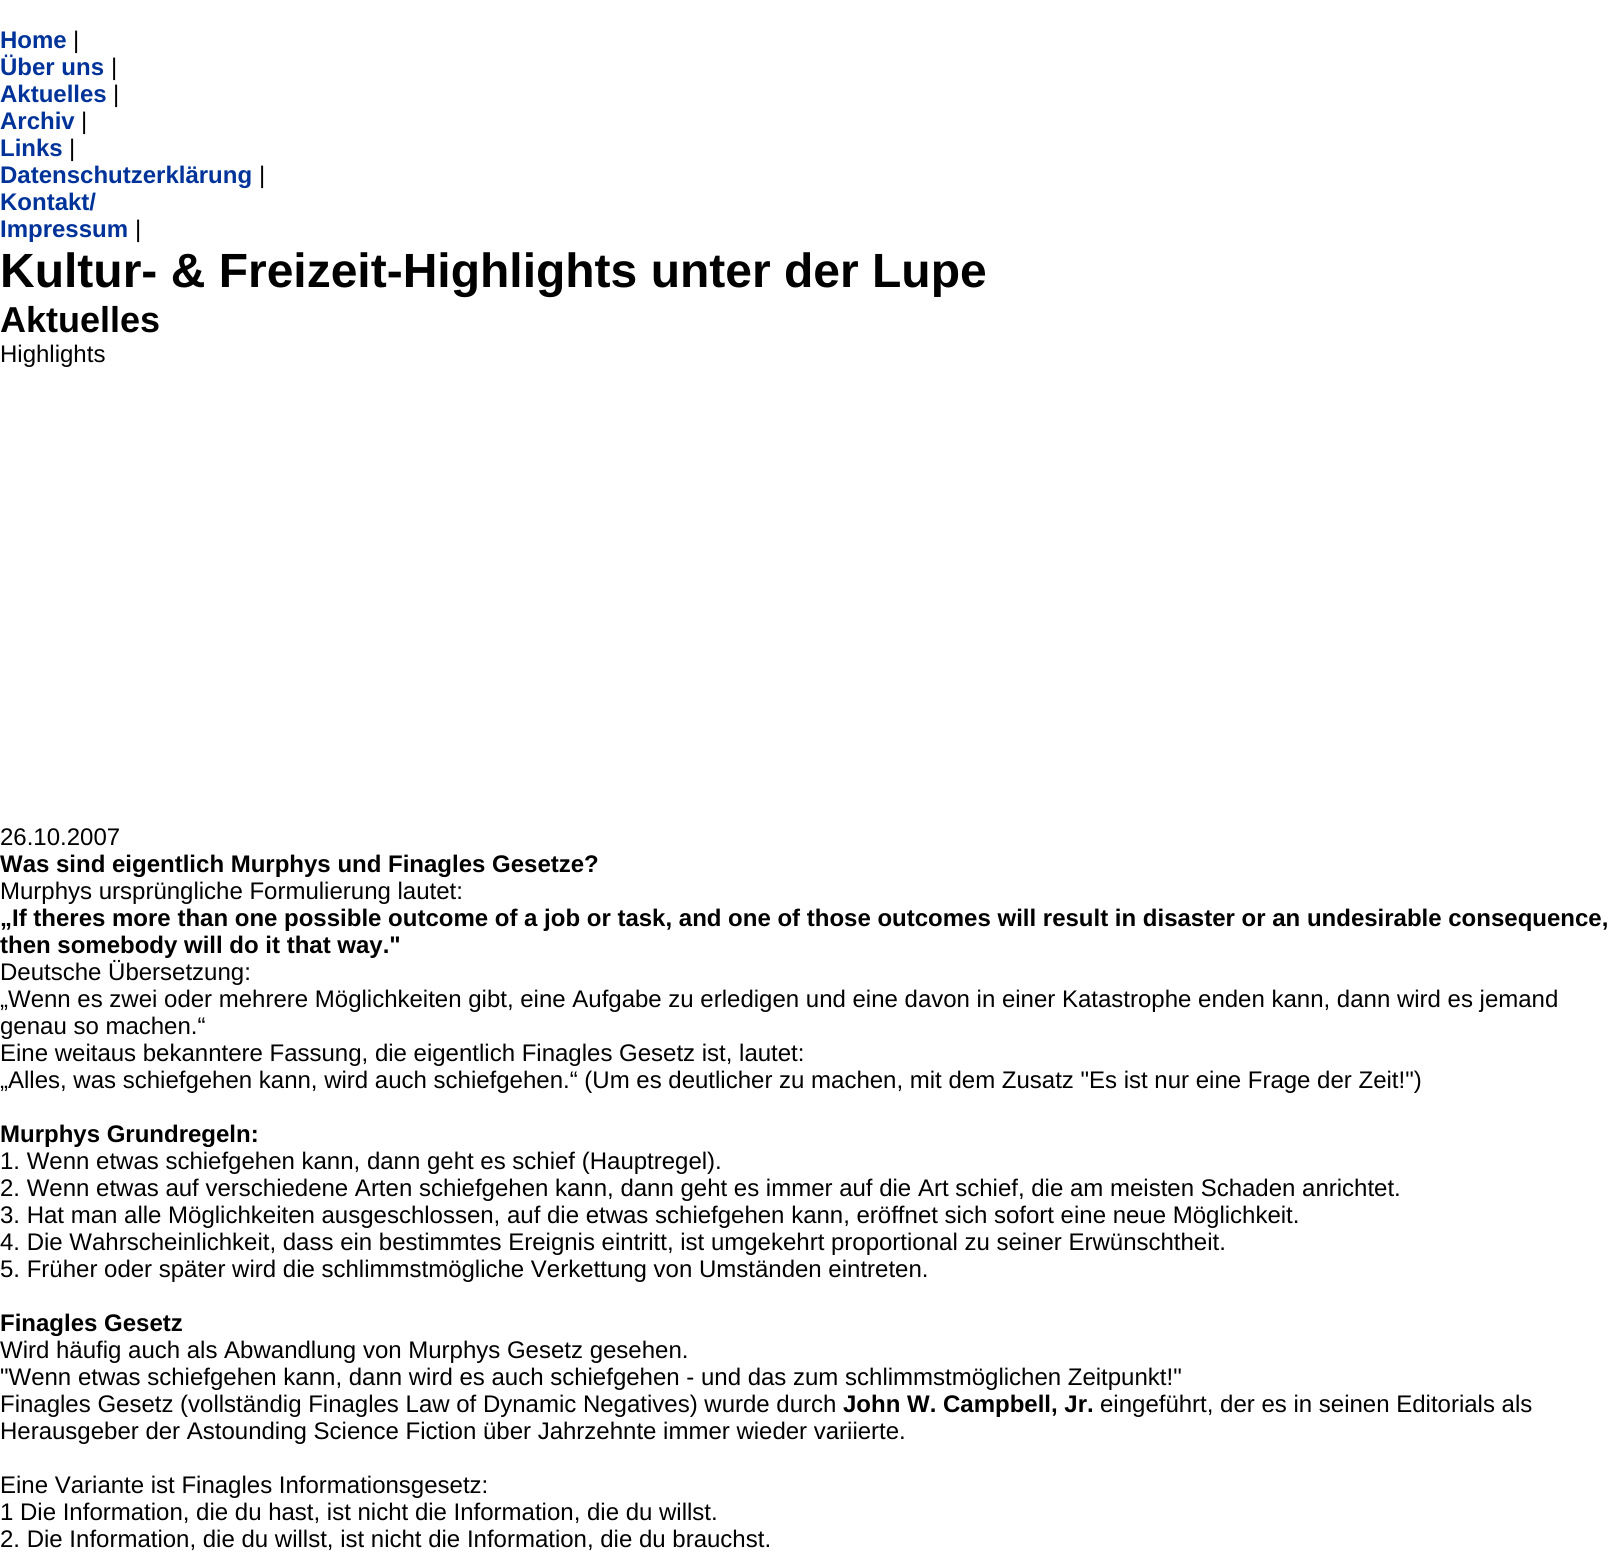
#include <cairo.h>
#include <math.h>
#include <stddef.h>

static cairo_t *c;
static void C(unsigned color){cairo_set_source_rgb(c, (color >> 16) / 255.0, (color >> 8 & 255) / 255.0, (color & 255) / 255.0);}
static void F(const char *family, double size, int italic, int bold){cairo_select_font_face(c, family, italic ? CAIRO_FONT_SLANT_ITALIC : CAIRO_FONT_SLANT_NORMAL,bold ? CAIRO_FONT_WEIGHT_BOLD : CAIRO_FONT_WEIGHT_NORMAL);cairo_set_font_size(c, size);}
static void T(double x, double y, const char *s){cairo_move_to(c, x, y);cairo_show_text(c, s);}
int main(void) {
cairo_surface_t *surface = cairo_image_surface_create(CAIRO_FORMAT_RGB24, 1618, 1561);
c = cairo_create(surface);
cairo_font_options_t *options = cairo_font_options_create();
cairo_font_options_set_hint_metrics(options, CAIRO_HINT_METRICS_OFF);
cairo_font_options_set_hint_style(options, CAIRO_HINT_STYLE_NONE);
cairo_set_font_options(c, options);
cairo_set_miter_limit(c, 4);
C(0xffffff);
cairo_paint(c);
F("Liberation Sans",24,0,1);
C(0x003399);
T(0,48,"Home");
F("Liberation Sans",24,0,0);
C(0x000000);
T(73,48,"|");
F("Liberation Sans",24,0,1);
C(0x003399);
T(0,75,"Über uns");
F("Liberation Sans",24,0,0);
C(0x000000);
T(111,75,"|");
F("Liberation Sans",24,0,1);
C(0x003399);
T(0,102,"Aktuelles");
F("Liberation Sans",24,0,0);
C(0x000000);
T(113,102,"|");
F("Liberation Sans",24,0,1);
C(0x003399);
T(0,129,"Archiv");
F("Liberation Sans",24,0,0);
C(0x000000);
T(81,129,"|");
F("Liberation Sans",24,0,1);
C(0x003399);
T(0,156,"Links");
F("Liberation Sans",24,0,0);
C(0x000000);
T(69,156,"|");
F("Liberation Sans",24,0,1);
C(0x003399);
T(0,183,"Datenschutzerklärung");
F("Liberation Sans",24,0,0);
C(0x000000);
T(259,183,"|");
F("Liberation Sans",24,0,1);
C(0x003399);
T(0,210,"Kontakt/");
T(0,237,"Impressum");
F("Liberation Sans",24,0,0);
C(0x000000);
T(135,237,"|");
F("Liberation Sans",48,0,1);
T(0,287,"Kultur- & Freizeit-Highlights unter der Lupe");
F("Liberation Sans",36,0,1);
T(0,332,"Aktuelles");
F("Liberation Sans",24,0,0);
T(0,362,"Highlights");
T(0,845,"26.10.2007");
F("Liberation Sans",24,0,1);
T(0,872,"Was sind eigentlich Murphys und Finagles Gesetze?");
F("Liberation Sans",24,0,0);
T(0,899,"Murphys ursprüngliche Formulierung lautet:");
F("Liberation Sans",24,0,1);
T(0,926,"„If theres more than one possible outcome of a job or task, and one of those outcomes will result in disaster or an undesirable consequence,");
T(0,953,"then somebody will do it that way.\"");
F("Liberation Sans",24,0,0);
T(0,980,"Deutsche Übersetzung:");
T(0,1007,"„Wenn es zwei oder mehrere Möglichkeiten gibt, eine Aufgabe zu erledigen und eine davon in einer Katastrophe enden kann, dann wird es jemand");
T(0,1034,"genau so machen.“");
T(0,1061,"Eine weitaus bekanntere Fassung, die eigentlich Finagles Gesetz ist, lautet:");
T(0,1088,"„Alles, was schiefgehen kann, wird auch schiefgehen.“ (Um es deutlicher zu machen, mit dem Zusatz \"Es ist nur eine Frage der Zeit!\")");
F("Liberation Sans",24,0,1);
T(0,1142,"Murphys Grundregeln:");
F("Liberation Sans",24,0,0);
T(0,1169,"1. Wenn etwas schiefgehen kann, dann geht es schief (Hauptregel).");
T(0,1196,"2. Wenn etwas auf verschiedene Arten schiefgehen kann, dann geht es immer auf die Art schief, die am meisten Schaden anrichtet.");
T(0,1223,"3. Hat man alle Möglichkeiten ausgeschlossen, auf die etwas schiefgehen kann, eröffnet sich sofort eine neue Möglichkeit.");
T(0,1250,"4. Die Wahrscheinlichkeit, dass ein bestimmtes Ereignis eintritt, ist umgekehrt proportional zu seiner Erwünschtheit.");
T(0,1277,"5. Früher oder später wird die schlimmstmögliche Verkettung von Umständen eintreten.");
F("Liberation Sans",24,0,1);
T(0,1331,"Finagles Gesetz");
F("Liberation Sans",24,0,0);
T(0,1358,"Wird häufig auch als Abwandlung von Murphys Gesetz gesehen.");
T(0,1385,"\"Wenn etwas schiefgehen kann, dann wird es auch schiefgehen - und das zum schlimmstmöglichen Zeitpunkt!\"");
T(0,1412,"Finagles Gesetz (vollständig Finagles Law of Dynamic Negatives) wurde durch");
F("Liberation Sans",24,0,1);
T(843,1412,"John W. Campbell, Jr.");
F("Liberation Sans",24,0,0);
T(1100,1412,"eingeführt, der es in seinen Editorials als");
T(0,1439,"Herausgeber der Astounding Science Fiction über Jahrzehnte immer wieder variierte.");
T(0,1493,"Eine Variante ist Finagles Informationsgesetz:");
T(0,1520,"1 Die Information, die du hast, ist nicht die Information, die du willst.");
T(0,1547,"2. Die Information, die du willst, ist nicht die Information, die du brauchst.");
cairo_surface_write_to_png(surface, "o.png");
cairo_font_options_destroy(options);
cairo_destroy(c);
cairo_surface_destroy(surface);
return 0;
}
